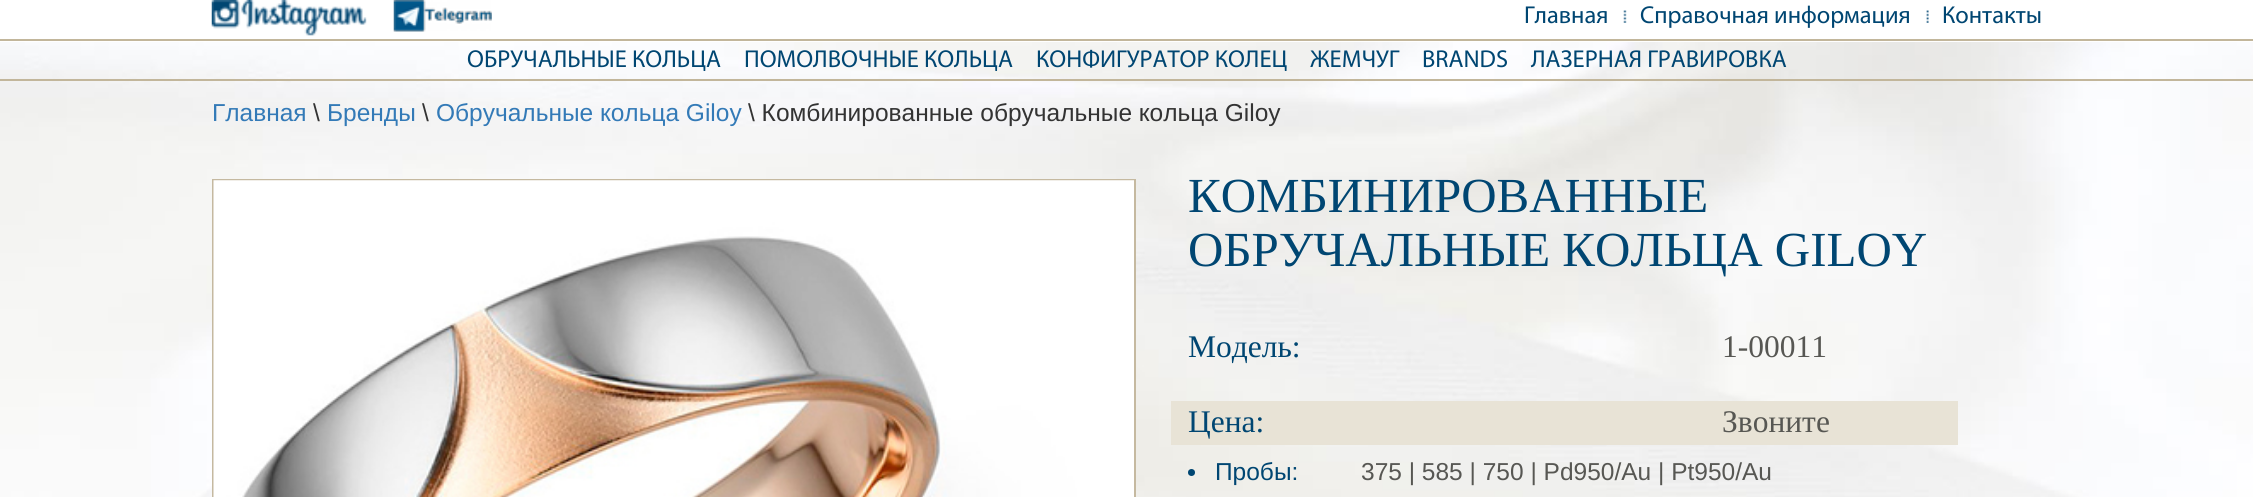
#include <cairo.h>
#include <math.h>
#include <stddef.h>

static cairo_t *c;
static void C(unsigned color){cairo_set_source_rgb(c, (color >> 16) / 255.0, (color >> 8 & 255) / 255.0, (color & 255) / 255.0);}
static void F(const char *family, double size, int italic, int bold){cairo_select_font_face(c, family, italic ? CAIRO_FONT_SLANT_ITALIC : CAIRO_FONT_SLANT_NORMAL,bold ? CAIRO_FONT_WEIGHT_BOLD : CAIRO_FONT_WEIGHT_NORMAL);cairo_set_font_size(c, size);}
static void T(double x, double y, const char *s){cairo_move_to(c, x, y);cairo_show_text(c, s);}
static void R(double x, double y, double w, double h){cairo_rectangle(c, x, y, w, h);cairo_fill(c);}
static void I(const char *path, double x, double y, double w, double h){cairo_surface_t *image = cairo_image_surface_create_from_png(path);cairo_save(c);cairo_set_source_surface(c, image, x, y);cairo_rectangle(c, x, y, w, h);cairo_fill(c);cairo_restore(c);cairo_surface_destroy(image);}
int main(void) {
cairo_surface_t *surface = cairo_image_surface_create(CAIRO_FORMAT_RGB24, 2253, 497);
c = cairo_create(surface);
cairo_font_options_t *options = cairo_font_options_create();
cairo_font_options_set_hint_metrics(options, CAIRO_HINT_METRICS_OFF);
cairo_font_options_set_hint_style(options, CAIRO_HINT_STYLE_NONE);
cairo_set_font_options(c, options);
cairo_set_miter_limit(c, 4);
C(0xffffff);
cairo_paint(c);
I("1.png",0,42,2253,455);
I("2.png",211,0,156,36);
I("3.png",393,0,99,32);
F("Myriad",24.5,0,0);
C(0x004672);
T(1524,23,"Главная");
I("4.png",1623,10,4,13);
T(1640,23,"Справочная информация");
I("5.png",1926,10,3,13);
T(1942,23,"Контакты");
C(0xc2b69b);
R(0,39,2253,2);
R(0,79,2253,2);
C(0x004672);
T(467,67,"ОБРУЧАЛЬНЫЕ КОЛЬЦА");
T(744,67,"ПОМОЛВОЧНЫЕ КОЛЬЦА");
T(1036,67,"КОНФИГУРАТОР КОЛЕЦ");
T(1310,67,"ЖЕМЧУГ");
T(1422,67,"BRANDS");
T(1531,67,"ЛАЗЕРНАЯ ГРАВИРОВКА");
F("Liberation Sans",24.5,0,0);
C(0x337ab7);
T(212,121,"Главная");
C(0x333333);
T(313,121,"\\");
C(0x337ab7);
T(327,121,"Бренды");
C(0x333333);
T(422,121,"\\");
C(0x337ab7);
T(436,121,"Обручальные кольца Giloy");
C(0x333333);
T(748,121,"\\ Комбинированные обручальные кольца Giloy");
cairo_rectangle(c,213,180,922,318);
C(0xc5b9a0);
cairo_stroke(c);
I("6.png",213,180,921,317);
F("Liberation Serif",49,0,0);
C(0x004672);
T(1188,212,"КОМБИНИРОВАННЫЕ");
T(1188,266,"ОБРУЧАЛЬНЫЕ КОЛЬЦА GILOY");
F("Liberation Serif",31.5,0,0);
T(1188,357,"Модель:");
C(0x575753);
T(1722,357,"1-00011");
C(0xe8e3d6);
R(1171,401,787,44);
C(0x004672);
T(1188,432,"Цена:");
C(0x575753);
T(1722,432,"Звоните");
C(0x004672);
cairo_new_path(c);
cairo_arc(c,1191.5,472.5,3.5,0,2 * M_PI);
cairo_fill(c);
F("Liberation Sans",24.5,0,0);
T(1215,480,"Пробы:");
C(0x575753);
T(1361,480,"375 | 585 | 750 | Pd950/Au | Pt950/Au");
cairo_surface_write_to_png(surface, "o.png");
cairo_font_options_destroy(options);
cairo_destroy(c);
cairo_surface_destroy(surface);
return 0;
}
